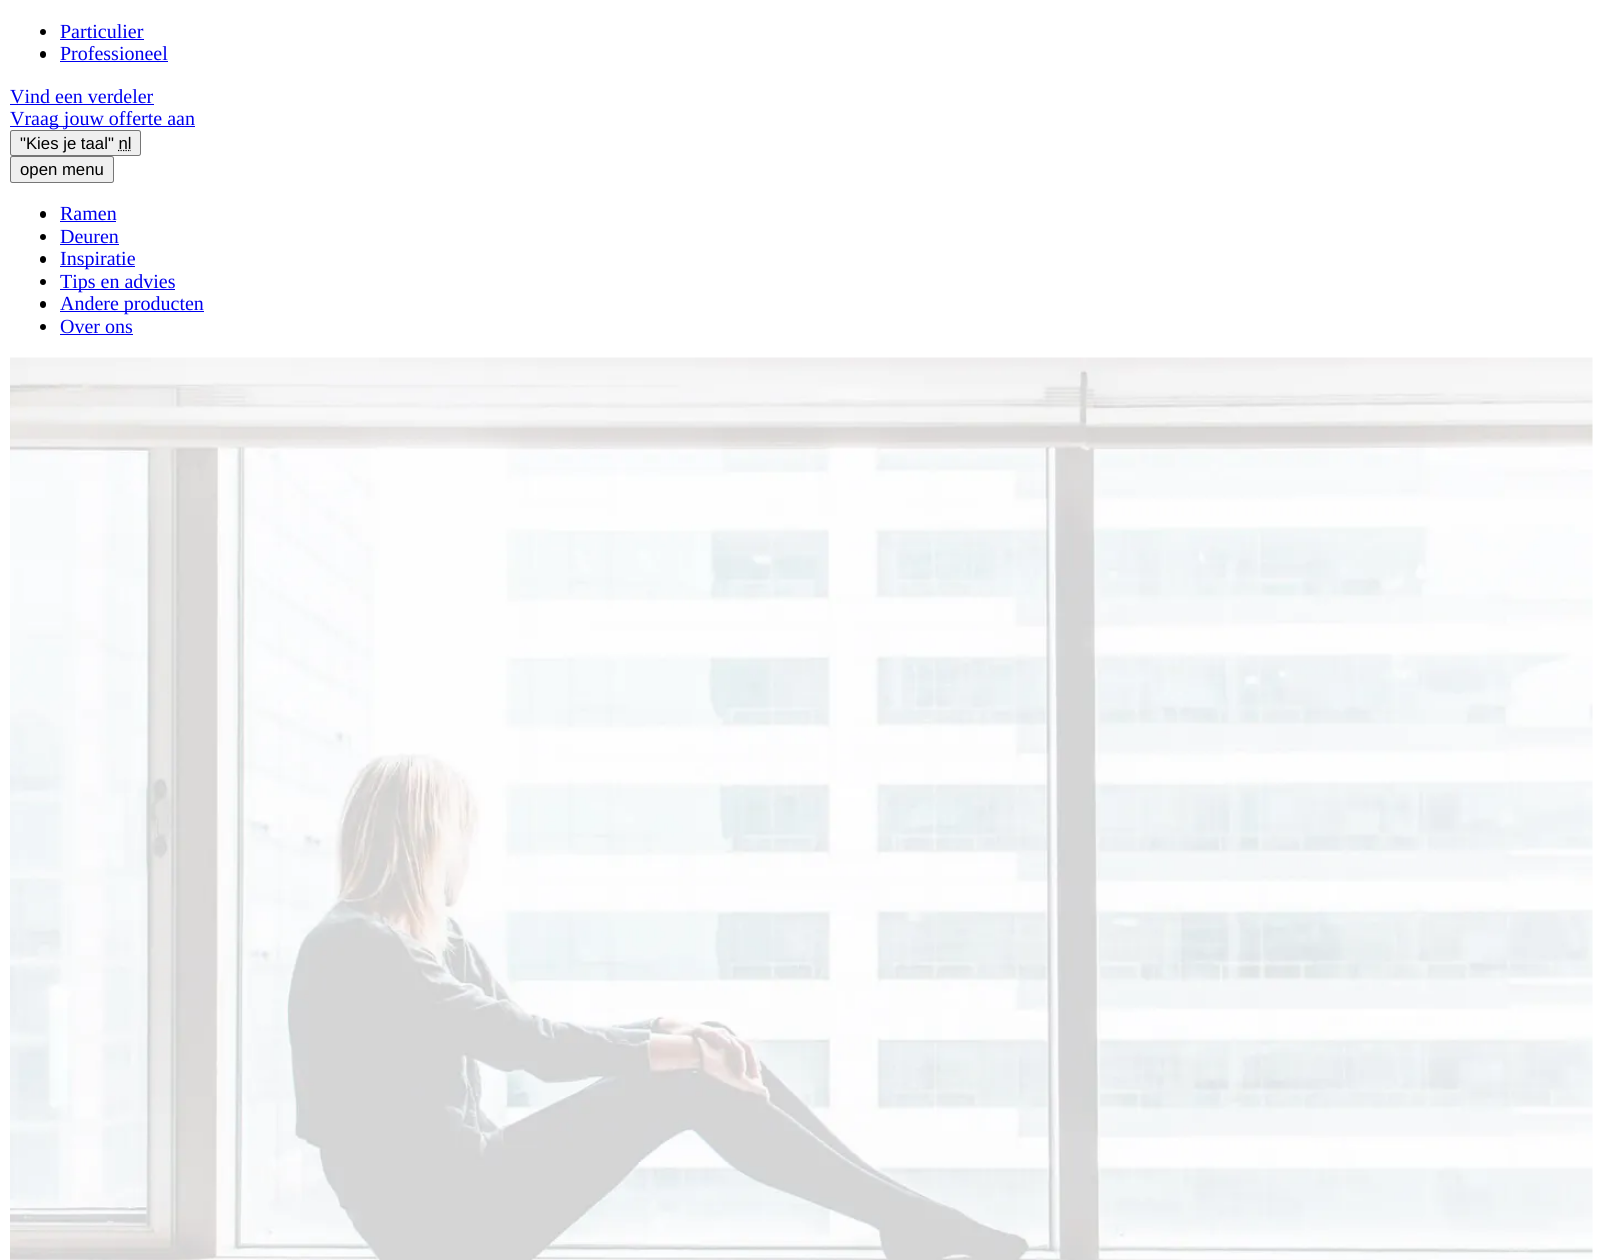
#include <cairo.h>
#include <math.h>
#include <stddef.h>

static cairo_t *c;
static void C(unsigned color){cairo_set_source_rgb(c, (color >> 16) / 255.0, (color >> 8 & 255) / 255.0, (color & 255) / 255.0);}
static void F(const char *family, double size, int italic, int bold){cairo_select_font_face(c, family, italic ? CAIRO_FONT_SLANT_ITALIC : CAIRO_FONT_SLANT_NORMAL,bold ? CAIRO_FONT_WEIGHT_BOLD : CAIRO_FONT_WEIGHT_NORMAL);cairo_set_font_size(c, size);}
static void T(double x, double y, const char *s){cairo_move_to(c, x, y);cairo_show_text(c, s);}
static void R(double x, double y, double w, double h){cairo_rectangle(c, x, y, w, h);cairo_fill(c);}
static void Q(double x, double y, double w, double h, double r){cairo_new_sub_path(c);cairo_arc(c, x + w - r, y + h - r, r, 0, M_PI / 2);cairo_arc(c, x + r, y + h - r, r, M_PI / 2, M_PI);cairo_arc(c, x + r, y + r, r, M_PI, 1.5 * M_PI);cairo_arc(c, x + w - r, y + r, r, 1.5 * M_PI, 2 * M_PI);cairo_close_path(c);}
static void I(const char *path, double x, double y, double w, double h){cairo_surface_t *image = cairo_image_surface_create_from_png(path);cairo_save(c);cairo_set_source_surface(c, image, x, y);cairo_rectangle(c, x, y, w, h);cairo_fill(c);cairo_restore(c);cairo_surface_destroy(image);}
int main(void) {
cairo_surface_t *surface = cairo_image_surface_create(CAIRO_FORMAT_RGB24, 1602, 1260);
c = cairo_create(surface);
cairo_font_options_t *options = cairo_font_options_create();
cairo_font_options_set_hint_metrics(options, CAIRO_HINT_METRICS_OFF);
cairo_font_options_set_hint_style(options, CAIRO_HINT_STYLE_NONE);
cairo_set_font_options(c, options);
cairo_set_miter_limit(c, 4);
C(0xffffff);
cairo_paint(c);
C(0x000000);
cairo_arc(c,43,32,3,0,2 * M_PI);
cairo_fill(c);
F("Liberation Serif",20,0,0);
C(0x0000ee);
T(60,38,"Particulier");
R(60,39,84,1);
C(0x000000);
Q(40,51,6,7,3);
cairo_fill(c);
C(0x0000ee);
T(60,60,"Professioneel");
R(60,61,108,1);
T(10,103,"Vind een verdeler");
R(10,104,144,1);
R(10,126,185,1);
T(10,125,"Vraag jouw offerte aan");
C(0xefefef);
Q(10.5,130.5,130,25,2);
cairo_fill_preserve(c);
C(0x767676);
cairo_set_line_width(c,1);
cairo_stroke(c);
F("Liberation Sans",16.75,0,0);
C(0x000000);
T(20,149,"\"Kies je taal\" nl");
cairo_new_path(c);
cairo_move_to(c,118,150.5);
cairo_line_to(c,131,150.5);
cairo_set_line_width(c,1.2);
cairo_set_dash(c,(double[]){1.25,1.25},2,0);
cairo_stroke(c);
C(0xefefef);
Q(10.5,156.5,103,26,2);
cairo_fill_preserve(c);
C(0x767676);
cairo_set_line_width(c,1);
cairo_set_dash(c,NULL,0,0);
cairo_stroke(c);
C(0x000000);
T(20,175,"open menu");
Q(40,211,6,7,3);
cairo_fill(c);
F("Liberation Serif",20,0,0);
C(0x0000ee);
T(60,220,"Ramen");
R(60,221,56,1);
C(0x000000);
cairo_new_path(c);
cairo_arc(c,43,237,3,0,2 * M_PI);
cairo_fill(c);
C(0x0000ee);
T(60,243,"Deuren");
R(60,244,59,1);
C(0x000000);
Q(40,256,6,7,3);
cairo_fill(c);
C(0x0000ee);
R(60,266,75,1);
T(60,265,"Inspiratie");
C(0x000000);
cairo_new_path(c);
cairo_arc(c,43,282,3,0,2 * M_PI);
cairo_fill(c);
C(0x0000ee);
R(60,289,115,1);
T(60,288,"Tips en advies");
C(0x000000);
Q(40,301,6,7,3);
cairo_fill(c);
C(0x0000ee);
R(60,311,144,1);
T(60,310,"Andere producten");
C(0x000000);
cairo_new_path(c);
cairo_arc(c,43,327,3,0,2 * M_PI);
cairo_fill(c);
C(0x0000ee);
T(60,333,"Over ons");
R(60,334,73,1);
I("1.png",10,357,1583,903);
cairo_surface_write_to_png(surface, "o.png");
cairo_font_options_destroy(options);
cairo_destroy(c);
cairo_surface_destroy(surface);
return 0;
}
